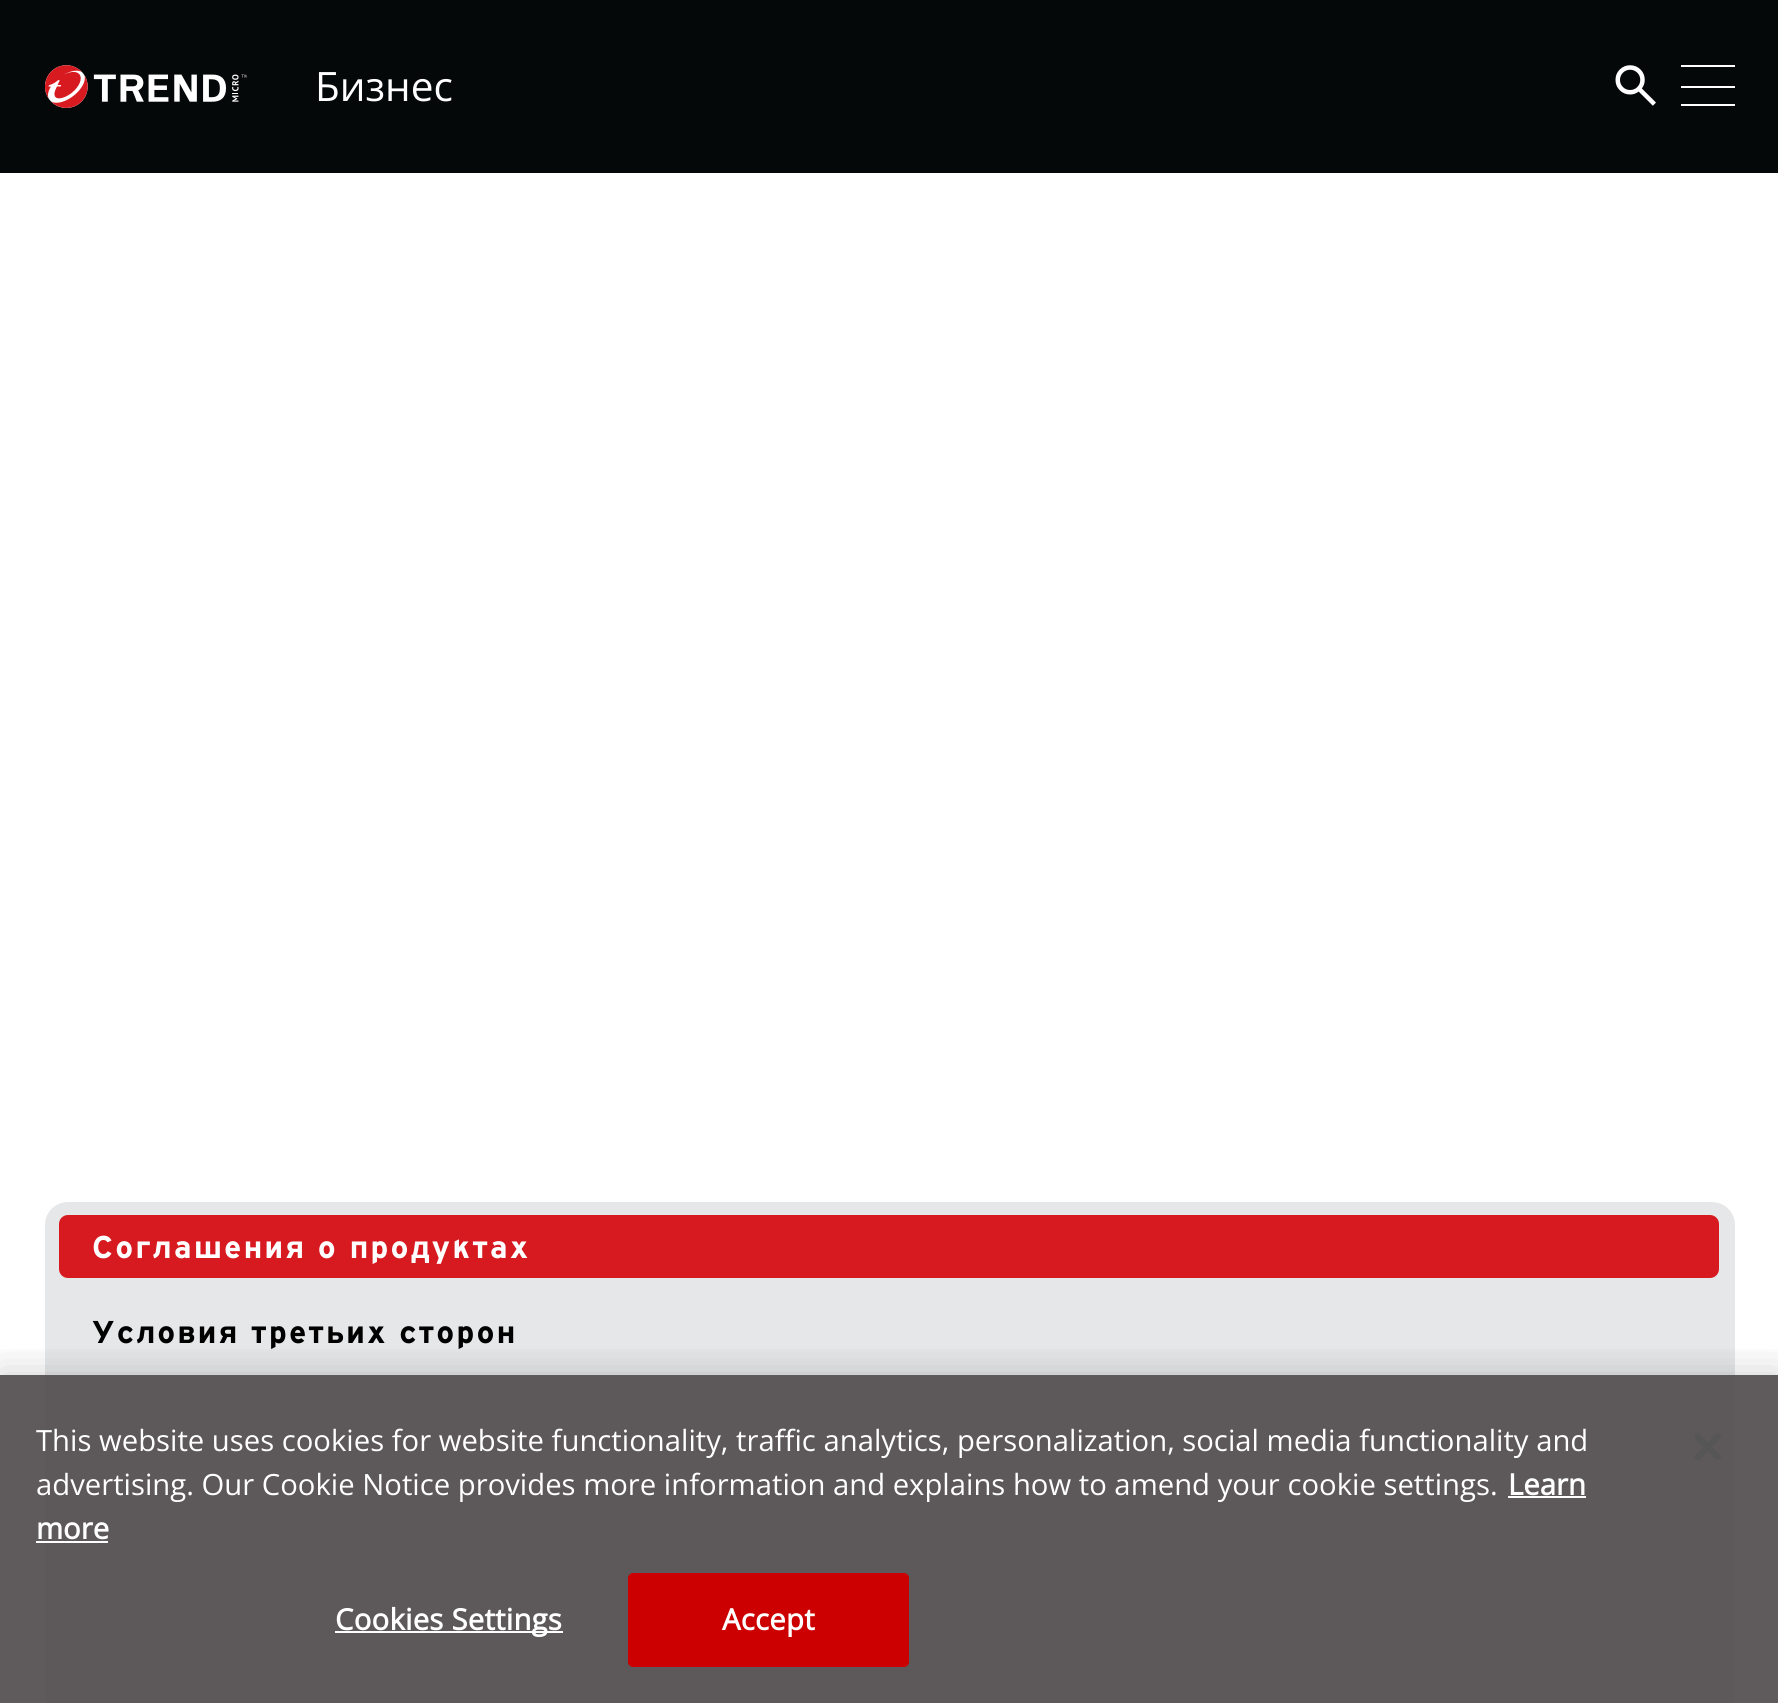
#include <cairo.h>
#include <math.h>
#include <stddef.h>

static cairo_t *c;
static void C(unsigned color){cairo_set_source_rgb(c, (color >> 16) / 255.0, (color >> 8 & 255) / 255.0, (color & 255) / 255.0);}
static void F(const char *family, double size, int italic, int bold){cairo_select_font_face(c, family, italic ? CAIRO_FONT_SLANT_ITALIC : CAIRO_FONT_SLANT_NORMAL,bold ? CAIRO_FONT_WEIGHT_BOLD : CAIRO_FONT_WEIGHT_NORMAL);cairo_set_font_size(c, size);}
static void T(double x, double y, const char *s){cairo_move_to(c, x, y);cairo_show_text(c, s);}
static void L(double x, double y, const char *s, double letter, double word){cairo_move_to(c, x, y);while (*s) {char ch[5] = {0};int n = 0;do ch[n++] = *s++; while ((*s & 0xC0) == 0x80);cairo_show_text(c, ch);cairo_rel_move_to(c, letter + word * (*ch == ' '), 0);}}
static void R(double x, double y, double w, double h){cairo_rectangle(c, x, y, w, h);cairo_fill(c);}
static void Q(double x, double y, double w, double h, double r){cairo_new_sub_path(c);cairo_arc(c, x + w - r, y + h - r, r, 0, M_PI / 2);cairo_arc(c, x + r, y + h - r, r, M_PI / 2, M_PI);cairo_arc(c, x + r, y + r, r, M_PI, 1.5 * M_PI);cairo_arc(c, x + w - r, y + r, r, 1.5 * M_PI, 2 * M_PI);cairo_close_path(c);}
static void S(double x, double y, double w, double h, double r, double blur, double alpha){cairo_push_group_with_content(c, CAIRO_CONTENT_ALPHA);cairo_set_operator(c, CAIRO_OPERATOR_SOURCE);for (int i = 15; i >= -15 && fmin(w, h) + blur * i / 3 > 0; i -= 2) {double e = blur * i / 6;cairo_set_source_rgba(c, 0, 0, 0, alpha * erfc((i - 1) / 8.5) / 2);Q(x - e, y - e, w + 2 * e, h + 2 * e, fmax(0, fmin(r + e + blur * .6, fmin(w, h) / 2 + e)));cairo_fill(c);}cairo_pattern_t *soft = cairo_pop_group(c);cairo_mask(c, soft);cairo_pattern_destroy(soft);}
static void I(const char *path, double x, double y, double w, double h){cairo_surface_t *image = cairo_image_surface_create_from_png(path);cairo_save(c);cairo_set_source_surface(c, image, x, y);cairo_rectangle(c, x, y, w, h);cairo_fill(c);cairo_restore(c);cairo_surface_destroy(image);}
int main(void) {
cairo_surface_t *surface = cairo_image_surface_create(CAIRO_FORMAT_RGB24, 1778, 1703);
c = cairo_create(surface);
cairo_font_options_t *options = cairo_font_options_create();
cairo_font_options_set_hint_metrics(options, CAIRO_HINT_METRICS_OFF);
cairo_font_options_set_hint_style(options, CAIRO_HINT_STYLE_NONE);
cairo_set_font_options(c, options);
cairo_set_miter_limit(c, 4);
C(0xffffff);
cairo_paint(c);
C(0x050809);
R(0,0,1778,173);
I("1.png",45,65,202,43);
F("Open Sans",40.5,0,0);
C(0xffffff);
T(315,101,"Бизнес");
I("2.png",1615,65,41,41);
R(1681,86,54,2);
R(1681,65,54,2);
R(1681,104,54,2);
C(0xe6e7e8);
Q(46,1203,1688,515,22);
cairo_fill_preserve(c);
cairo_stroke(c);
C(0xd71920);
Q(59,1215,1660,63,9);
cairo_fill(c);
F("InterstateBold",31.5,0,1);
C(0xffffff);
L(92,1258,"Соглашения о продуктах",2.5,0);
C(0x000000);
L(92,1343,"Условия третьих сторон",2.5,0);
cairo_save(c);
cairo_rectangle(c,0,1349,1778,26);
cairo_clip(c);
C(0x000000);
S(0,1375,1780,328,0,20,.2);
cairo_restore(c);
cairo_set_source_rgba(c,0.306,0.286,0.294,0.9);
R(0,1375,1778,328);
F("Open Sans",29.27,0,0);
C(0xffffff);
T(36,1451,"This website uses cookies for website functionality, traffic analytics, personalization, social media functionality and");
T(36,1495,"advertising. Our Cookie Notice provides more information and explains how to amend your cookie settings.");
F("Open Sans",29.27,0,1);
T(1508,1495,"Learn");
R(1508,1496,78,2);
T(36,1539,"more");
R(36,1541,72,2);
R(335,1631,228,2);
L(335,1630,"Cookies Settings",.25,0);
C(0xcc0000);
Q(629,1574,279,92,4);
cairo_fill_preserve(c);
cairo_stroke(c);
C(0xffffff);
L(722,1630,"Accept",.25,0);
I("3.png",1694,1433,27,27);
cairo_surface_write_to_png(surface, "o.png");
cairo_font_options_destroy(options);
cairo_destroy(c);
cairo_surface_destroy(surface);
return 0;
}
